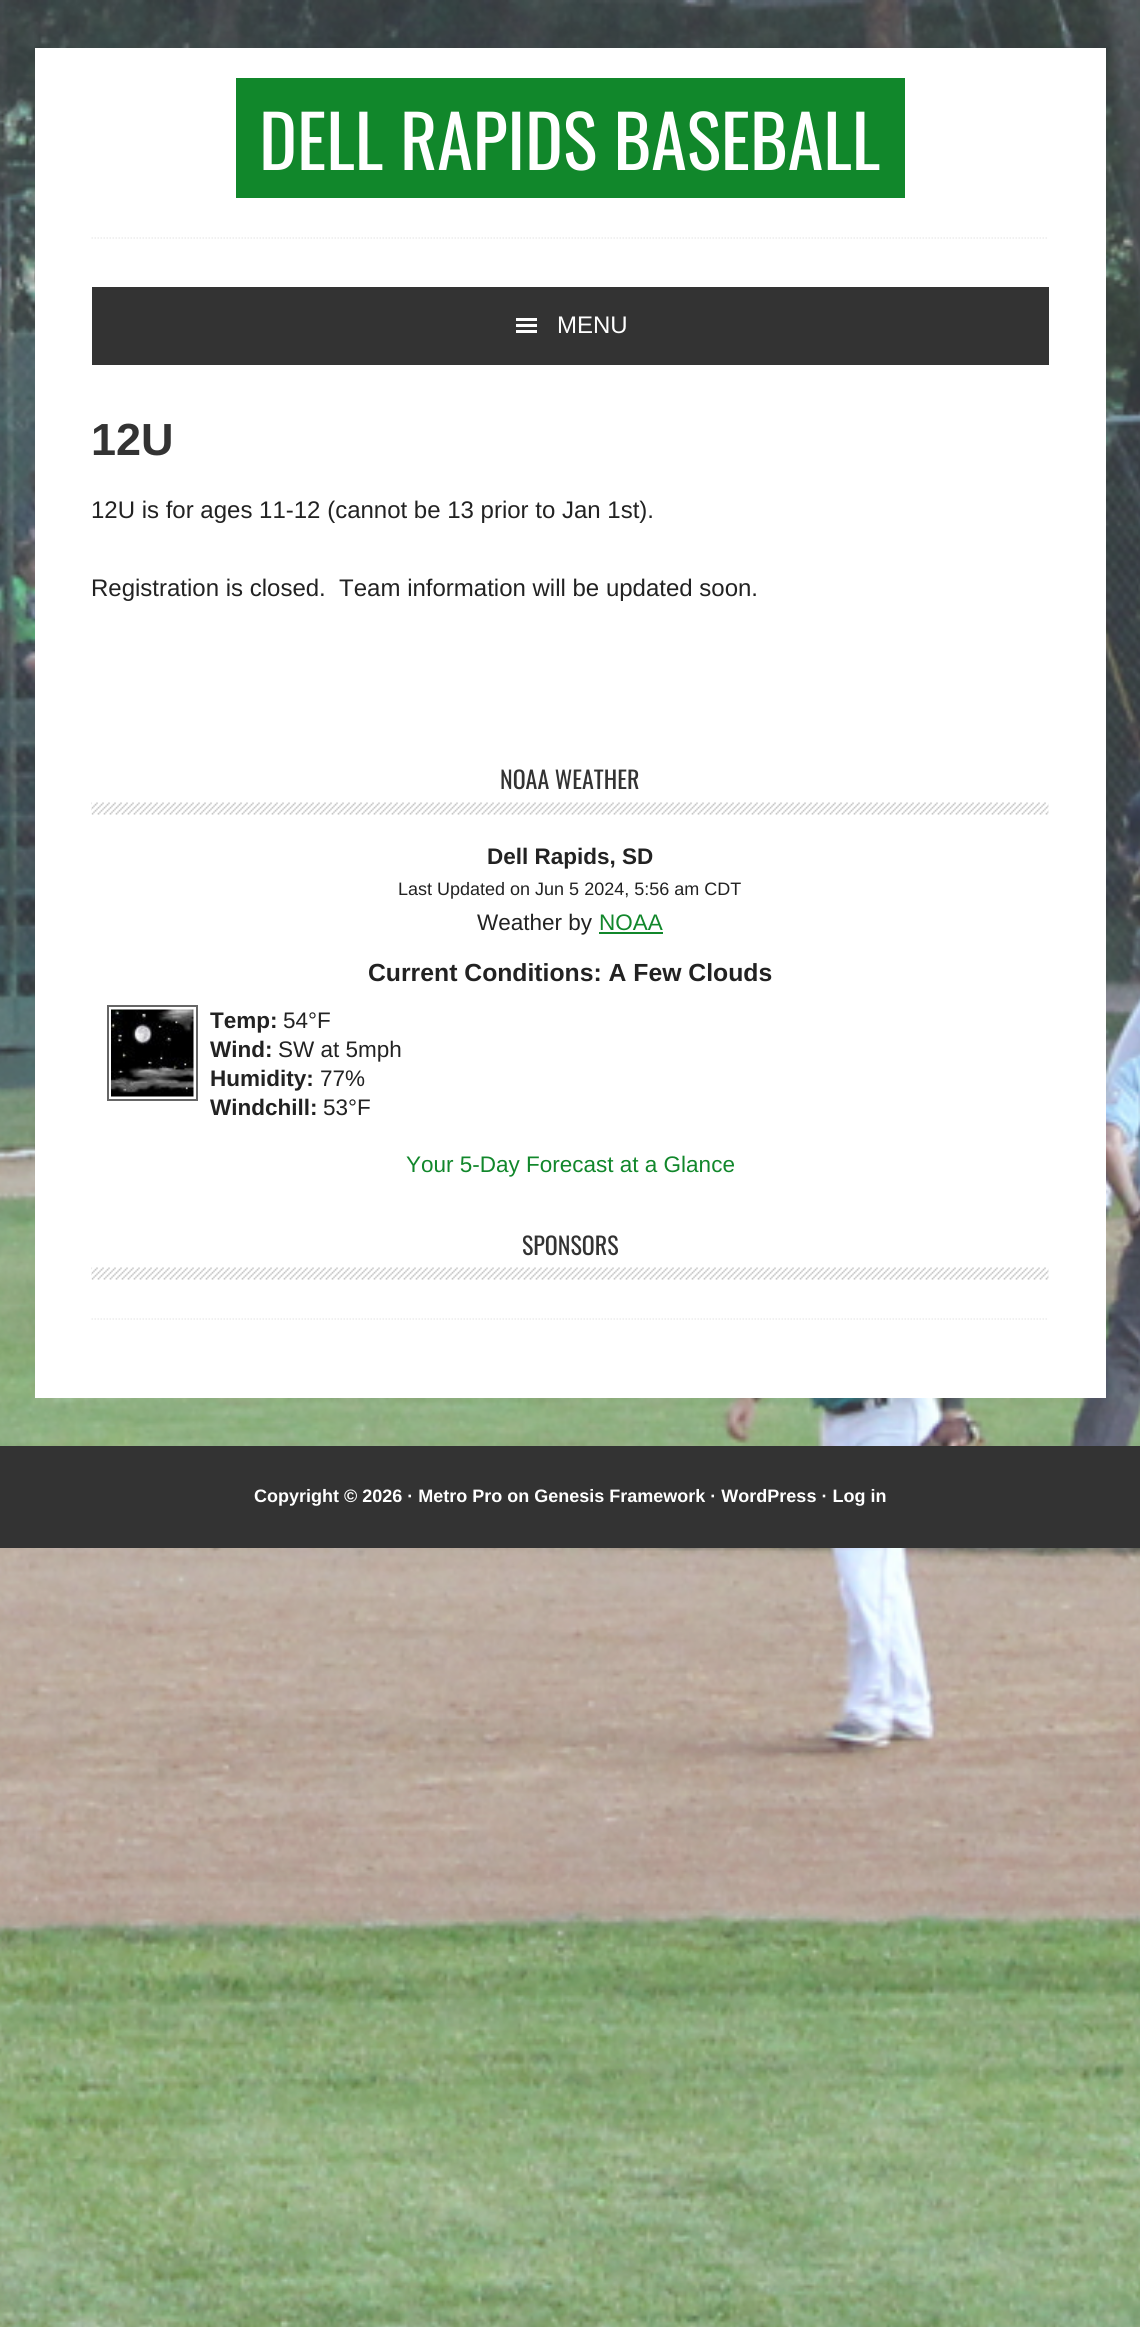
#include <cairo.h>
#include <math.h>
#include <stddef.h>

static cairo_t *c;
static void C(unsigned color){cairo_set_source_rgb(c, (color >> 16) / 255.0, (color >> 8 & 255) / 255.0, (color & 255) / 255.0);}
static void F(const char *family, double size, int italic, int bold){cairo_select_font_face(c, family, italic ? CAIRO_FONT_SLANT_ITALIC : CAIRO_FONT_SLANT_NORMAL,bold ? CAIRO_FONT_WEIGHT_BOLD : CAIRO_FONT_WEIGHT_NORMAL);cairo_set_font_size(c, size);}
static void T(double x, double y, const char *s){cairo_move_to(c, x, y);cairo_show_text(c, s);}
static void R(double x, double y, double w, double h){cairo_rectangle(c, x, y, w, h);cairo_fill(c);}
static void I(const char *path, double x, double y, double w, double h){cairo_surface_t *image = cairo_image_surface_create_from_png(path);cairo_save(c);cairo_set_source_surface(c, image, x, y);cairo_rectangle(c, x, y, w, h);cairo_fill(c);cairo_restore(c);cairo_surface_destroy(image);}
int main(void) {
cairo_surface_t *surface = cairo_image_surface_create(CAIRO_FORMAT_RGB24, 1140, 2327);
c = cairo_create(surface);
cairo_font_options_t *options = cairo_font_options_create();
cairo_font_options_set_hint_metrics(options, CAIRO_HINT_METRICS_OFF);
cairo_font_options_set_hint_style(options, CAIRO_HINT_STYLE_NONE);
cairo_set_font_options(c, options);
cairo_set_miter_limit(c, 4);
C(0xffffff);
cairo_paint(c);
I("1.png",0,0,1140,2327);
C(0xffffff);
R(35,48,1071,1350);
C(0x11872b);
R(236,78,669,120);
F("Oswald",72,0,0);
C(0xffffff);
T(259,170,"DELL RAPIDS BASEBALL");
cairo_new_path(c);
cairo_move_to(c,91.5,238);
cairo_line_to(c,1048.5,238);
C(0xececec);
cairo_set_line_width(c,1.5);
cairo_set_dash(c,(double[]){1.5,1.5},2,0);
cairo_stroke(c);
C(0x333333);
R(92,287,957,78);
I("2.png",516,318,21,15);
F("Liberation Sans",24,0,0);
C(0xffffff);
T(557,333,"MENU");
F("Liberation Sans",45,0,1);
C(0x333333);
T(91,455,"12U");
F("Liberation Sans",24,0,0);
C(0x222222);
T(91,518,"12U is for ages 11-12 (cannot be 13 prior to Jan 1st).");
T(91,596,"Registration is closed.  Team information will be updated soon.");
I("3.png",91,802,958,13);
F("Oswald",24,0,0);
C(0x333333);
T(500,789,"NOAA WEATHER");
F("Liberation Sans",22.5,0,1);
C(0x222222);
T(487,864,"Dell Rapids, SD");
F("Liberation Sans",18,0,0);
T(398,895,"Last Updated on Jun 5 2024, 5:56 am CDT");
F("Liberation Sans",22.5,0,0);
T(477,930,"Weather by");
C(0x11872b);
T(599,930,"NOAA");
R(599,932,64,2);
F("Liberation Sans",24.75,0,1);
C(0x222222);
T(368,981,"Current Conditions: A Few Clouds");
cairo_rectangle(c,108,1006,89,94);
C(0x666666);
cairo_set_line_width(c,2);
cairo_set_dash(c,NULL,0,0);
cairo_stroke(c);
I("4.png",111,1009,83,88);
F("Liberation Sans",22.5,0,1);
C(0x222222);
T(210,1028,"Temp:");
F("Liberation Sans",22.5,0,0);
T(283,1028,"54°F");
F("Liberation Sans",22.5,0,1);
T(210,1057,"Wind:");
F("Liberation Sans",22.5,0,0);
T(278,1057,"SW at 5mph");
F("Liberation Sans",22.5,0,1);
T(210,1086,"Humidity:");
F("Liberation Sans",22.5,0,0);
T(320,1086,"77%");
F("Liberation Sans",22.5,0,1);
T(210,1115,"Windchill:");
F("Liberation Sans",22.5,0,0);
T(323,1115,"53°F");
C(0x11872b);
T(406,1172,"Your 5-Day Forecast at a Glance");
I("5.png",91,1267,958,13);
F("Oswald",24,0,0);
C(0x333333);
T(522,1255,"SPONSORS");
cairo_new_path(c);
cairo_move_to(c,91.5,1319);
cairo_line_to(c,1048.5,1319);
C(0xececec);
cairo_set_line_width(c,1.5);
cairo_set_dash(c,(double[]){1.5,1.5},2,0);
cairo_stroke(c);
C(0x333333);
R(0,1446,1140,102);
F("Liberation Sans",18,0,1);
C(0xffffff);
T(254,1502,"Copyright © 2026 · Metro Pro on Genesis Framework · WordPress · Log in");
cairo_surface_write_to_png(surface, "o.png");
cairo_font_options_destroy(options);
cairo_destroy(c);
cairo_surface_destroy(surface);
return 0;
}
